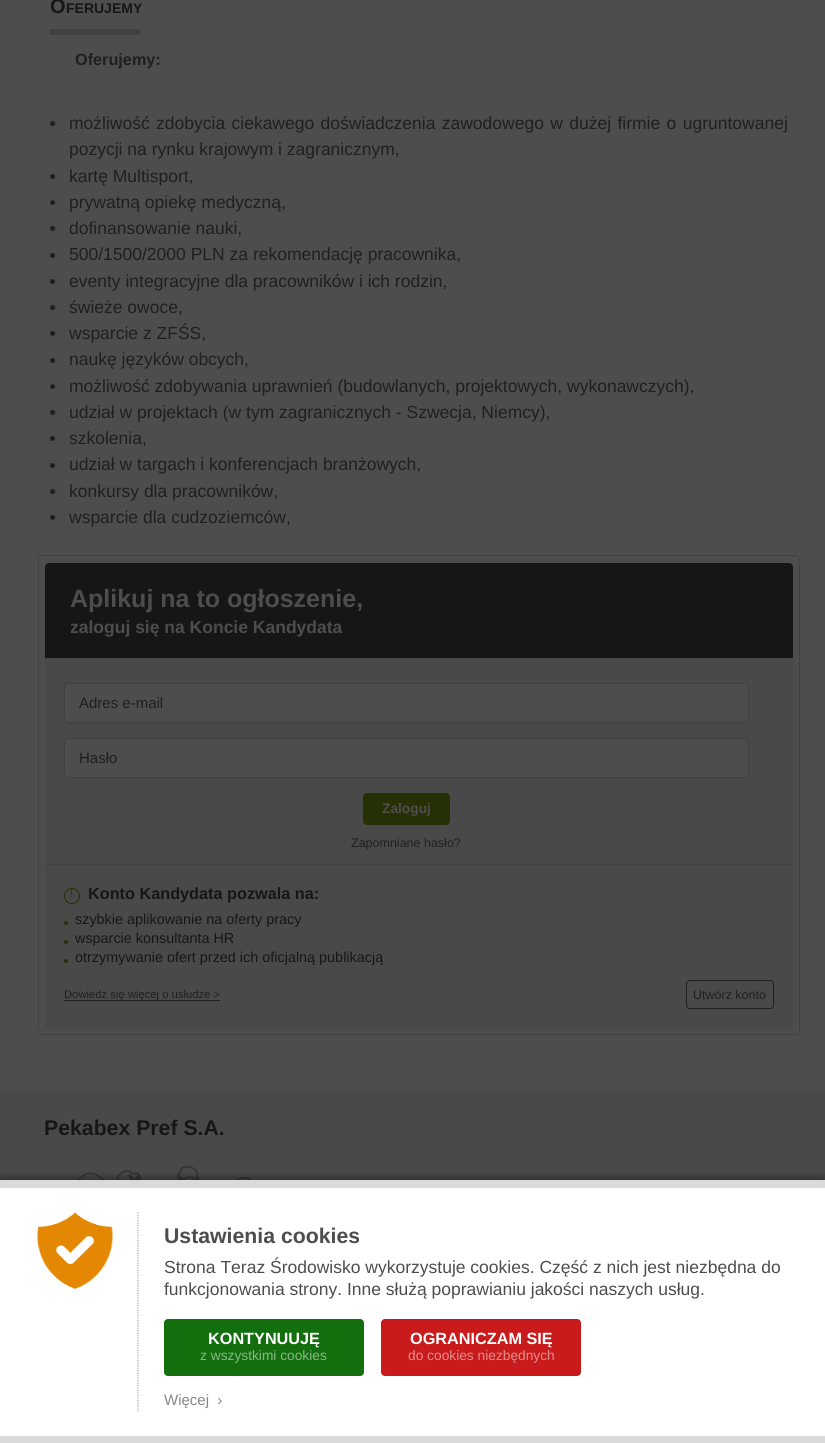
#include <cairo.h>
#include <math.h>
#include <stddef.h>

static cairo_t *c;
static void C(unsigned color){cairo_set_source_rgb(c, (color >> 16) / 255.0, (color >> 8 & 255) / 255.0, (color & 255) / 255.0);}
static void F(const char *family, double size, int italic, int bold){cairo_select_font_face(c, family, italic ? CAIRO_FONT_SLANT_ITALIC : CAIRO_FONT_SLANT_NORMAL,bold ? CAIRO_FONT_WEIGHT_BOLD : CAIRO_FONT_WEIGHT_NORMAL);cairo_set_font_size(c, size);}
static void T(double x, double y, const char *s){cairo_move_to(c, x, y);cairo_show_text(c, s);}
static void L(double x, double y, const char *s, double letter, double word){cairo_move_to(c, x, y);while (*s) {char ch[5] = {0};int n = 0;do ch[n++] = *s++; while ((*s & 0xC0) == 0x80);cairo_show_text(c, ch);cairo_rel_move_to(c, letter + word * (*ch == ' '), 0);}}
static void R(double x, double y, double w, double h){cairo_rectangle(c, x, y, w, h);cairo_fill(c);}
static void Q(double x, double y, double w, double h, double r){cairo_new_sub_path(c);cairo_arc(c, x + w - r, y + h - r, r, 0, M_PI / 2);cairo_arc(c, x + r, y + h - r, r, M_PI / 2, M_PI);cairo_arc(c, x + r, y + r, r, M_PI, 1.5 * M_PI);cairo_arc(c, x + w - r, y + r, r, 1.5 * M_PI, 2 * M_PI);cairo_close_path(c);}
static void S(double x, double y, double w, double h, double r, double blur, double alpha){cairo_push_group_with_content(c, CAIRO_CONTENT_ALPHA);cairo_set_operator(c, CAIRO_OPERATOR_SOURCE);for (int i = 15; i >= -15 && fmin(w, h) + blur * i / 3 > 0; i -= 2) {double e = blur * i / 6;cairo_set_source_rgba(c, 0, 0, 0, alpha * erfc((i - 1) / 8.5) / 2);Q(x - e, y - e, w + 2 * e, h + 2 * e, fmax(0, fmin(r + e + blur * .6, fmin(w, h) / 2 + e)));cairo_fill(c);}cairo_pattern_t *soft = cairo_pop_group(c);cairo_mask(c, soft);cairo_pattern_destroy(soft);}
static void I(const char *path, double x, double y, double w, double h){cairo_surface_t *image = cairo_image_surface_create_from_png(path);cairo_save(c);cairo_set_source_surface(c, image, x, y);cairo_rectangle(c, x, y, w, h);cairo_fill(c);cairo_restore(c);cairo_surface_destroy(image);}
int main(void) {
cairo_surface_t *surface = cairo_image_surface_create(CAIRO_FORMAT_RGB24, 825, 1443);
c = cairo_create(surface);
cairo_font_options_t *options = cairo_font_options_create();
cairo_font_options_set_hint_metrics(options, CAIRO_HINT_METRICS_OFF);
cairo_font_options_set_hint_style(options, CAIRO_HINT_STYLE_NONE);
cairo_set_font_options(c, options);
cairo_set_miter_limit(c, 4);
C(0x4d4d4d);
cairo_paint(c);
C(0x414141);
R(50,29,90,6);
F("Liberation Sans",20,0,1);
C(0x161616);
T(50,13,"O");
F("Liberation Sans",14,0,1);
T(66,13,"FERUJEMY");
F("Liberation Sans",16.25,0,1);
C(0x1f1f1f);
T(75,65,"Oferujemy:");
cairo_new_path(c);
cairo_arc(c,52.5,123.5,2.5,0,2 * M_PI);
cairo_fill(c);
F("Liberation Sans",17.5,0,0);
L(69,129,"możliwość zdobycia ciekawego doświadczenia zawodowego w dużej firmie o ugruntowanej",0,1.5);
T(69,155,"pozycji na rynku krajowym i zagranicznym,");
cairo_new_path(c);
cairo_arc(c,52.5,176.5,2.5,0,2 * M_PI);
cairo_fill(c);
T(69,182,"kartę Multisport,");
cairo_new_path(c);
cairo_arc(c,52.5,202.5,2.5,0,2 * M_PI);
cairo_fill(c);
T(69,208,"prywatną opiekę medyczną,");
cairo_new_path(c);
cairo_arc(c,52.5,228.5,2.5,0,2 * M_PI);
cairo_fill(c);
T(69,234,"dofinansowanie nauki,");
cairo_new_path(c);
cairo_arc(c,52.5,255.5,2.5,0,2 * M_PI);
cairo_fill(c);
T(69,260,"500/1500/2000 PLN za rekomendację pracownika,");
cairo_new_path(c);
cairo_arc(c,52.5,281.5,2.5,0,2 * M_PI);
cairo_fill(c);
T(69,287,"eventy integracyjne dla pracowników i ich rodzin,");
cairo_new_path(c);
cairo_arc(c,52.5,307.5,2.5,0,2 * M_PI);
cairo_fill(c);
T(69,313,"świeże owoce,");
cairo_new_path(c);
cairo_arc(c,52.5,333.5,2.5,0,2 * M_PI);
cairo_fill(c);
T(69,339,"wsparcie z ZFŚS,");
cairo_new_path(c);
cairo_arc(c,52.5,360.5,2.5,0,2 * M_PI);
cairo_fill(c);
T(69,365,"naukę języków obcych,");
cairo_new_path(c);
cairo_arc(c,52.5,386.5,2.5,0,2 * M_PI);
cairo_fill(c);
T(69,392,"możliwość zdobywania uprawnień (budowlanych, projektowych, wykonawczych),");
cairo_new_path(c);
cairo_arc(c,52.5,412.5,2.5,0,2 * M_PI);
cairo_fill(c);
T(69,418,"udział w projektach (w tym zagranicznych - Szwecja, Niemcy),");
cairo_new_path(c);
cairo_arc(c,52.5,438.5,2.5,0,2 * M_PI);
cairo_fill(c);
T(69,444,"szkolenia,");
cairo_new_path(c);
cairo_arc(c,52.5,465.5,2.5,0,2 * M_PI);
cairo_fill(c);
T(69,470,"udział w targach i konferencjach branżowych,");
cairo_new_path(c);
cairo_arc(c,52.5,491.5,2.5,0,2 * M_PI);
cairo_fill(c);
T(69,497,"konkursy dla pracowników,");
cairo_new_path(c);
cairo_arc(c,52.5,517.5,2.5,0,2 * M_PI);
cairo_fill(c);
T(69,523,"wsparcie dla cudzoziemców,");
Q(38.5,555.5,761,479,3.5);
C(0x414141);
cairo_set_line_width(c,1);
cairo_stroke(c);
C(0x4d4d4d);
cairo_set_fill_rule(c,CAIRO_FILL_RULE_EVEN_ODD);
cairo_new_path(c);
cairo_move_to(c,42,556);
cairo_curve_to(c,40,556,39,557,39,558);
cairo_line_to(c,39,1032);
cairo_curve_to(c,39,1033,40,1034,42,1034);
cairo_line_to(c,796,1034);
cairo_curve_to(c,798,1034,799,1033,799,1032);
cairo_line_to(c,799,558);
cairo_curve_to(c,799,557,798,556,796,556);
cairo_close_path(c);
cairo_move_to(c,45,562);
cairo_line_to(c,45,1028);
cairo_line_to(c,793,1028);
cairo_line_to(c,793,562);
cairo_close_path(c);
cairo_fill(c);
C(0x494949);
R(45,563,748,465);
C(0x161616);
cairo_new_path(c);
cairo_move_to(c,49,563);
cairo_line_to(c,789,563);
cairo_curve_to(c,791,563,793,565,793,567);
cairo_line_to(c,793,658);
cairo_line_to(c,45,658);
cairo_line_to(c,45,567);
cairo_curve_to(c,45,565,47,563,49,563);
cairo_close_path(c);
cairo_fill(c);
F("Liberation Sans",25,0,1);
C(0x4d4d4d);
T(70,607,"Aplikuj na to ogłoszenie,");
F("Liberation Sans",17.5,0,1);
T(70,633,"zaloguj się na Koncie Kandydata");
Q(64.5,683.5,684,39,3.5);
cairo_fill_preserve(c);
C(0x414141);
cairo_stroke(c);
F("Liberation Sans",15,0,0);
C(0x1f1f1f);
T(79,708,"Adres e-mail");
C(0x4d4d4d);
Q(64.5,738.5,684,39,3.5);
cairo_fill_preserve(c);
C(0x414141);
cairo_stroke(c);
C(0x1f1f1f);
T(79,763,"Hasło");
C(0x263005);
Q(363,793,87,32,4);
cairo_fill(c);
F("Liberation Sans",13.75,0,1);
C(0x4d4d4d);
T(382,813,"Zaloguj");
F("Liberation Sans",12.5,0,0);
C(0x1f1f1f);
T(351,847,"Zapomniane hasło?");
C(0x414141);
R(45,864,748,1);
cairo_new_path(c);
cairo_arc(c,72,896,7.5,0,2 * M_PI);
C(0x263005);
cairo_stroke(c);
F("Liberation Sans",10,0,0);
T(70,897,"!");
F("Liberation Sans",16.25,0,1);
C(0x161616);
T(88,899,"Konto Kandydata pozwala na:");
C(0x263005);
cairo_new_path(c);
cairo_arc(c,66,923,2,0,2 * M_PI);
cairo_fill(c);
F("Liberation Sans",14.4,0,0);
C(0x161616);
T(75,924,"szybkie aplikowanie na oferty pracy");
C(0x263005);
cairo_new_path(c);
cairo_arc(c,66,942,2,0,2 * M_PI);
cairo_fill(c);
C(0x161616);
T(75,943,"wsparcie konsultanta HR");
C(0x263005);
cairo_new_path(c);
cairo_arc(c,66,961,2,0,2 * M_PI);
cairo_fill(c);
C(0x161616);
T(75,962,"otrzymywanie ofert przed ich oficjalną publikacją");
C(0x1f1f1f);
R(64,1000,156,1);
F("Liberation Sans",11.25,0,0);
T(64,998,"Dowiedz się więcej o usłudze >");
Q(686.5,980.5,87,28,3.5);
cairo_stroke(c);
F("Liberation Sans",12.5,0,0);
T(693,999,"Utwórz konto");
C(0x494949);
R(0,1091,825,89);
F("Liberation Sans",21.25,0,1);
C(0x161616);
T(44,1135,"Pekabex Pref S.A.");
I("1.png",77,1166,176,14);
C(0x000000);
S(0,1176,825,264,0,2.5,.3);
C(0xffffff);
R(0,1188,825,248);
C(0xdadada);
R(0,1180,825,8);
R(0,1436,825,7);
I("2.png",37,1212,76,77);
cairo_new_path(c);
cairo_move_to(c,138,1212.5);
cairo_line_to(c,138,1411);
C(0xa8a8a8);
cairo_set_line_width(c,1.2);
cairo_set_dash(c,(double[]){1.25,1.25},2,0);
cairo_stroke(c);
C(0x4d4d4d);
T(164,1243,"Ustawienia cookies");
F("Liberation Sans",17.5,0,0);
T(164,1273,"Strona Teraz Środowisko wykorzystuje cookies. Część z nich jest niezbędna do");
T(164,1295,"funkcjonowania strony. Inne służą poprawianiu jakości naszych usług.");
C(0x136f0e);
Q(164,1319,200,57,4);
cairo_fill(c);
F("Liberation Sans",16.25,0,1);
C(0xffffff);
T(208,1344,"KONTYNUUJĘ");
F("Liberation Sans",13.75,0,0);
C(0x89b787);
T(200,1360,"z wszystkimi cookies");
C(0xc91b1b);
Q(381,1319,200,57,4);
cairo_fill(c);
F("Liberation Sans",16.25,0,1);
C(0xffffff);
T(410,1344,"OGRANICZAM SIĘ");
F("Liberation Sans",13.75,0,0);
C(0xe48d8d);
T(408,1360,"do cookies niezbędnych");
F("Liberation Sans",15,0,0);
C(0x888888);
T(164,1405,"Więcej  ›");
cairo_surface_write_to_png(surface, "o.png");
cairo_font_options_destroy(options);
cairo_destroy(c);
cairo_surface_destroy(surface);
return 0;
}
